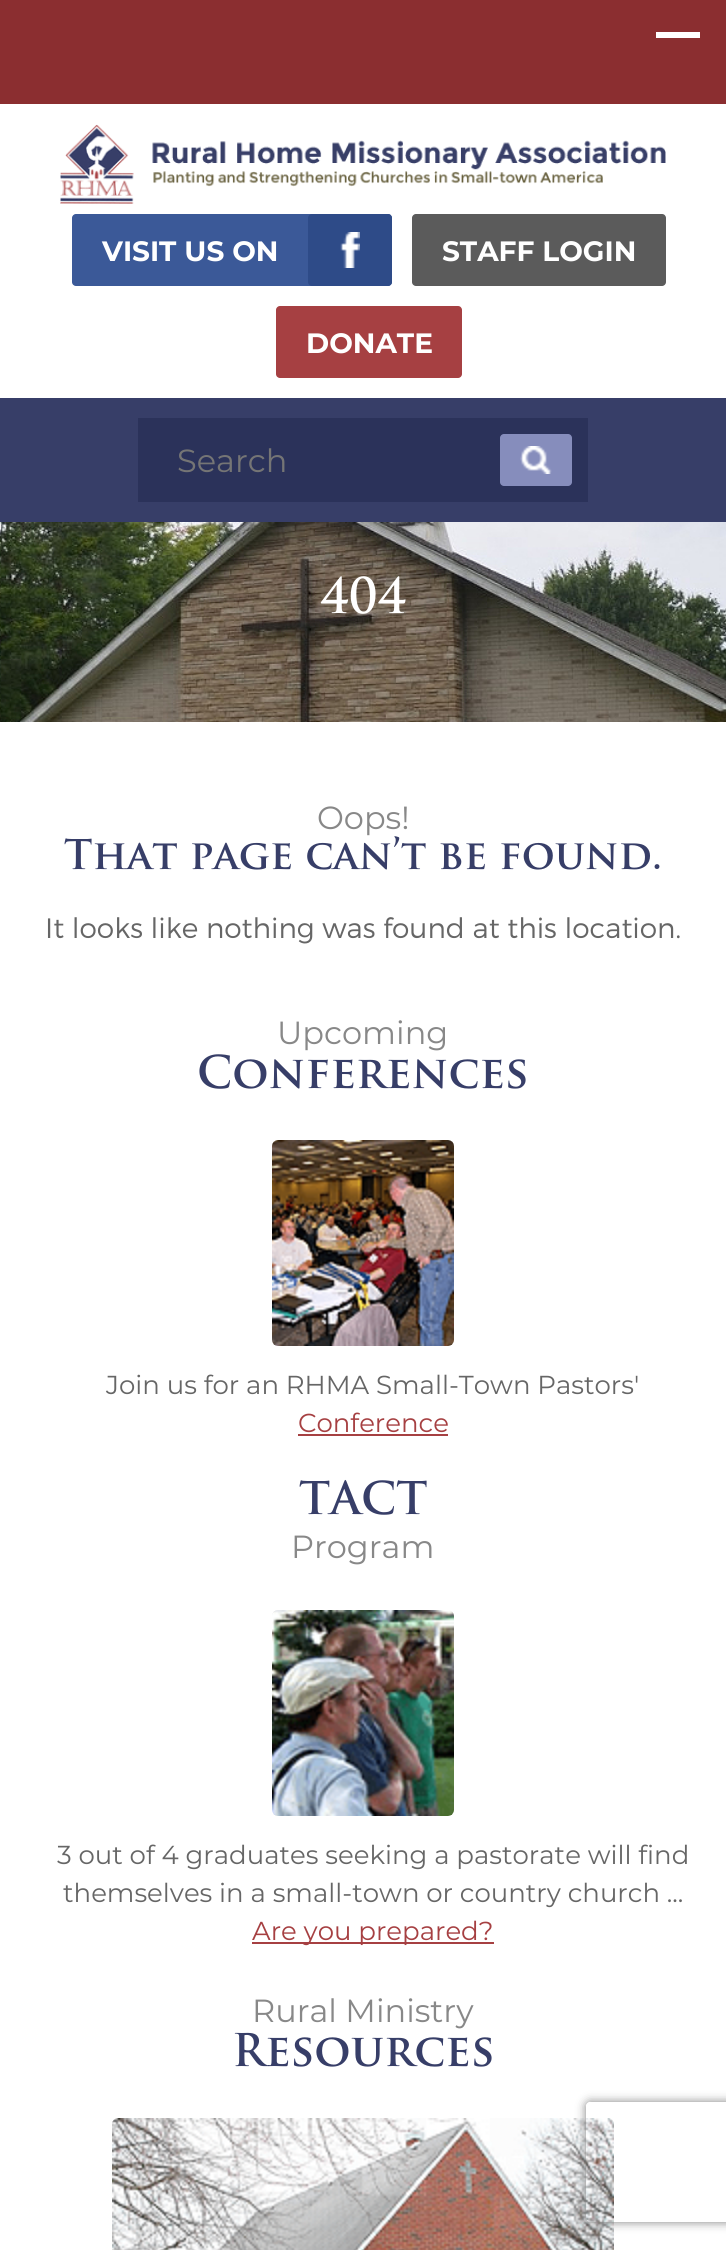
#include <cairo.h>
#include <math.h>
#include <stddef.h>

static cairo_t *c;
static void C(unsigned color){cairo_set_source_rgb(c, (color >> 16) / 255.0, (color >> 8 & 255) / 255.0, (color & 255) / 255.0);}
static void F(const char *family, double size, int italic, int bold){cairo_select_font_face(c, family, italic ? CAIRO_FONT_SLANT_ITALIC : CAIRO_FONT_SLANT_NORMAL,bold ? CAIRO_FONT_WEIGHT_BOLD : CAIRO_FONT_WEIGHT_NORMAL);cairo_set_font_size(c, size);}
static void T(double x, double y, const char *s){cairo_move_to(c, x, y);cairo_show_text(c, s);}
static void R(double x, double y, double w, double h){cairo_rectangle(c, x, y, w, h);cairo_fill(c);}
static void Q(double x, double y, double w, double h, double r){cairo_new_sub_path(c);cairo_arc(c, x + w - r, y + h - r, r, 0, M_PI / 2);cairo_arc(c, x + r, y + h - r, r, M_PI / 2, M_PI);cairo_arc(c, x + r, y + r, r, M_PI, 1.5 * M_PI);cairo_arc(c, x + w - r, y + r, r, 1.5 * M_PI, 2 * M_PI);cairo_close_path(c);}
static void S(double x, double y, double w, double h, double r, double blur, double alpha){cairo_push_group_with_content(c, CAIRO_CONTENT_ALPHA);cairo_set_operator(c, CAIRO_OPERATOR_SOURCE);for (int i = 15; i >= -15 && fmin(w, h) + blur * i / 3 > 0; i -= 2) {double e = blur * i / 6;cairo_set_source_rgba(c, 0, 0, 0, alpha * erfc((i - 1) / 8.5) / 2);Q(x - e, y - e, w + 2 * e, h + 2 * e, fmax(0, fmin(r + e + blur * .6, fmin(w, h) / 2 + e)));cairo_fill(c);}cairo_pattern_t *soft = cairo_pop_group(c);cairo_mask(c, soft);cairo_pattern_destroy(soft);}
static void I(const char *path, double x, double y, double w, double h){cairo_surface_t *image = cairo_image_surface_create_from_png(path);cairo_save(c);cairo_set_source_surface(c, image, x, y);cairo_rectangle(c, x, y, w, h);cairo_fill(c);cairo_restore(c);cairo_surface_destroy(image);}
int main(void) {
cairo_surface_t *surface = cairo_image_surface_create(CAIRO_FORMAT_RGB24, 726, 2250);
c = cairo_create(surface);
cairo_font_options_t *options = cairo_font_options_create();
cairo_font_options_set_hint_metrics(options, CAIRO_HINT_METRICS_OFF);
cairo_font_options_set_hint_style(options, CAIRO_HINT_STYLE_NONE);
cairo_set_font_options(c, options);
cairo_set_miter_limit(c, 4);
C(0xffffff);
cairo_paint(c);
C(0x8b2e30);
R(0,0,726,104);
C(0xffffff);
R(656,32,44,6);
I("1.png",60,124,606,80);
C(0x3b5998);
Q(72,214,320,72,4);
cairo_fill(c);
F("Montserrat",28,0,1);
C(0xffffff);
T(102,261,"VISIT US ON");
C(0x2e4b88);
Q(308,214,84,72,4);
cairo_fill(c);
I("2.png",340,232,20,36);
C(0x5b5b5b);
Q(412,214,254,72,4);
cairo_fill(c);
C(0xffffff);
T(442,261,"STAFF LOGIN");
C(0xa64042);
Q(276,306,186,72,4);
cairo_fill(c);
C(0xffffff);
T(306,353,"DONATE");
C(0x373e68);
R(0,398,726,124);
C(0x2b325a);
R(138,418,450,84);
F("Montserrat",32,0,0);
C(0x757575);
T(177,472,"Search");
C(0x868dbc);
Q(500,434,72,52,4);
cairo_fill(c);
I("3.png",520,446,32,28);
I("4.png",0,522,726,200);
F("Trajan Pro",48,0,1);
C(0xffffff);
T(320,613,"404");
F("Montserrat",32,0,0);
C(0x888888);
T(317,829,"Oops!");
F("Trajan Pro",40,0,1);
C(0x373e68);
T(64,869,"That page can’t be found.");
F("Montserrat Light",28,0,0);
C(0x666666);
T(45,938,"It looks like nothing was found at this location.");
F("Montserrat",32,0,0);
C(0x888888);
T(277,1044,"Upcoming");
F("Trajan Pro",44,0,1);
C(0x373e68);
T(197,1088,"Conferences");
I("5.png",272,1140,182,206);
I("6.png",272,1140,182,206);
F("Montserrat",26,0,0);
C(0x666666);
T(106,1394,"Join us for an RHMA Small-Town Pastors'");
C(0xa64042);
T(298,1432,"Conference");
R(298,1434,150,2);
F("Trajan Pro",44,0,1);
C(0x373e68);
T(299,1514,"TACT");
F("Montserrat",32,0,0);
C(0x888888);
T(291,1558,"Program");
I("5.png",272,1610,182,206);
I("7.png",272,1610,182,206);
F("Montserrat",26,0,0);
C(0x666666);
T(57,1864,"3 out of 4 graduates seeking a pastorate will find");
T(63,1902,"themselves in a small-town or country church ...");
C(0xa64042);
R(252,1942,242,2);
T(252,1940,"Are you prepared?");
F("Montserrat",32,0,0);
C(0x888888);
T(252,2022,"Rural Ministry");
F("Trajan Pro",44,0,1);
C(0x373e68);
T(232,2066,"Resources");
I("8.png",112,2118,502,6);
I("9.png",112,2118,502,132);
cairo_save(c);
cairo_set_fill_rule(c,CAIRO_FILL_RULE_EVEN_ODD);
cairo_new_path(c);
cairo_move_to(c,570,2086);
cairo_line_to(c,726,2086);
cairo_line_to(c,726,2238);
cairo_line_to(c,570,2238);
cairo_close_path(c);
cairo_move_to(c,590,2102);
cairo_line_to(c,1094,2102);
cairo_curve_to(c,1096,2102,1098,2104,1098,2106);
cairo_line_to(c,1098,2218);
cairo_curve_to(c,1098,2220,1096,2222,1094,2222);
cairo_line_to(c,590,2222);
cairo_curve_to(c,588,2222,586,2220,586,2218);
cairo_line_to(c,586,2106);
cairo_curve_to(c,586,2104,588,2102,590,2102);
cairo_close_path(c);
cairo_clip(c);
C(0x808080);
S(586,2102,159,120,4,5,1);
cairo_restore(c);
cairo_surface_write_to_png(surface, "o.png");
cairo_font_options_destroy(options);
cairo_destroy(c);
cairo_surface_destroy(surface);
return 0;
}
